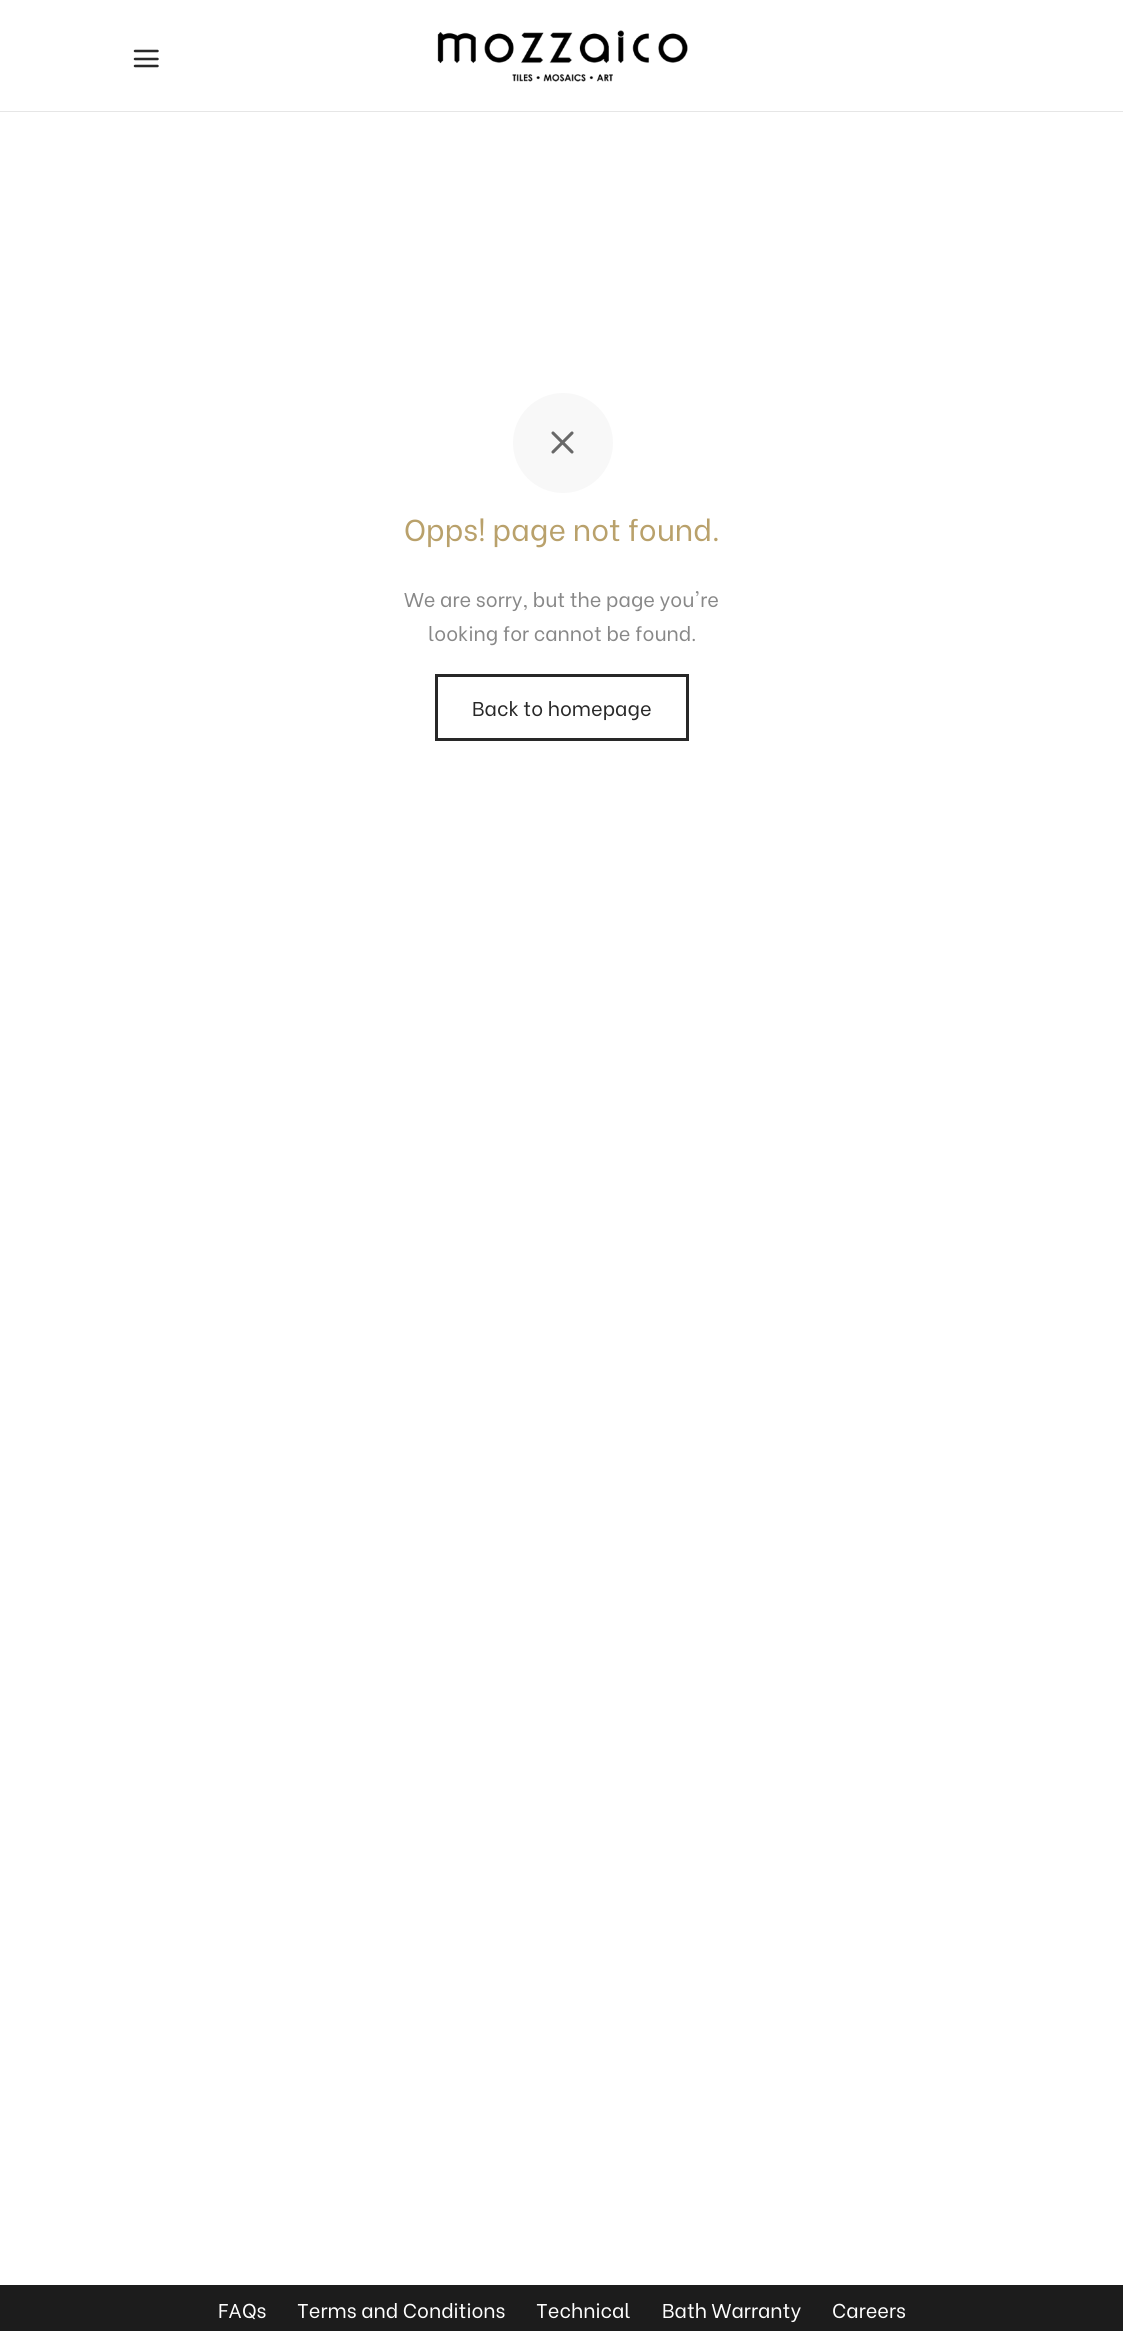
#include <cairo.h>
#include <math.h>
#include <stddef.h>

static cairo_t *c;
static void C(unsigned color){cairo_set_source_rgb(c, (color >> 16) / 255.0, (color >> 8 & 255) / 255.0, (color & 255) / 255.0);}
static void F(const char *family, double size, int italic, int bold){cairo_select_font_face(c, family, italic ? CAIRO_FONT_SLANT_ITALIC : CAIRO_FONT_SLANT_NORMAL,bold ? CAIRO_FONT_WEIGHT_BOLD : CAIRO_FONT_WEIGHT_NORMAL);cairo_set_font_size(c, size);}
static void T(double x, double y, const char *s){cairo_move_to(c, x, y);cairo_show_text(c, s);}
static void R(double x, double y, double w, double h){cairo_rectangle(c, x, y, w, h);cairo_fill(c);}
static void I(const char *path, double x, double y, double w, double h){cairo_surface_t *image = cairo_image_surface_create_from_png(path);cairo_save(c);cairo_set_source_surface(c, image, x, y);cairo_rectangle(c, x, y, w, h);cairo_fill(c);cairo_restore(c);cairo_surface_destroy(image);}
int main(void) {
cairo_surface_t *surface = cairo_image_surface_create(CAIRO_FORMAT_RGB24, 1123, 2331);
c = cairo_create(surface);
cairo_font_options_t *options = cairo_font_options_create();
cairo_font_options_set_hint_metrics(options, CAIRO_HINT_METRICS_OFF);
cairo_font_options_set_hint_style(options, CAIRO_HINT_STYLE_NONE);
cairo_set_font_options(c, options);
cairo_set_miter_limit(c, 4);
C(0xffffff);
cairo_paint(c);
cairo_new_path(c);
cairo_move_to(c,135,59);
cairo_line_to(c,157.5,59);
cairo_move_to(c,135,51);
cairo_line_to(c,157.5,51);
cairo_move_to(c,135,66);
cairo_line_to(c,157.5,66);
C(0x282828);
cairo_set_line_width(c,2.5);
cairo_set_line_cap(c,CAIRO_LINE_CAP_ROUND);
cairo_set_line_join(c,CAIRO_LINE_JOIN_ROUND);
cairo_stroke(c);
I("1.png",437,30,251,52);
C(0xe6e6e6);
R(0,111,1123,1);
C(0xf8f8f8);
cairo_arc(c,563,443,50,0,2 * M_PI);
cairo_fill(c);
cairo_new_path(c);
cairo_move_to(c,572,433);
cairo_line_to(c,553,452);
cairo_move_to(c,553,433);
cairo_line_to(c,572,452);
C(0x686868);
cairo_set_line_width(c,3.1);
cairo_stroke(c);
F("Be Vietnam",30,0,0);
C(0xb9a16b);
T(404,541,"Opps! page not found.");
F("Be Vietnam",20,0,0);
C(0x888888);
T(404,607,"We are sorry, but the page you're");
T(428,641,"looking for cannot be found.");
cairo_rectangle(c,436.5,675.5,251,64);
C(0x282828);
cairo_set_line_width(c,3);
cairo_set_line_cap(c,CAIRO_LINE_CAP_BUTT);
cairo_set_line_join(c,CAIRO_LINE_JOIN_MITER);
cairo_stroke(c);
T(472,716,"Back to homepage");
C(0x1c1c1c);
R(0,2285,1123,46);
C(0xffffff);
T(218,2318,"FAQs");
T(297,2318,"Terms and Conditions");
T(536,2318,"Technical");
T(662,2318,"Bath Warranty");
T(832,2318,"Careers");
cairo_surface_write_to_png(surface, "o.png");
cairo_font_options_destroy(options);
cairo_destroy(c);
cairo_surface_destroy(surface);
return 0;
}
